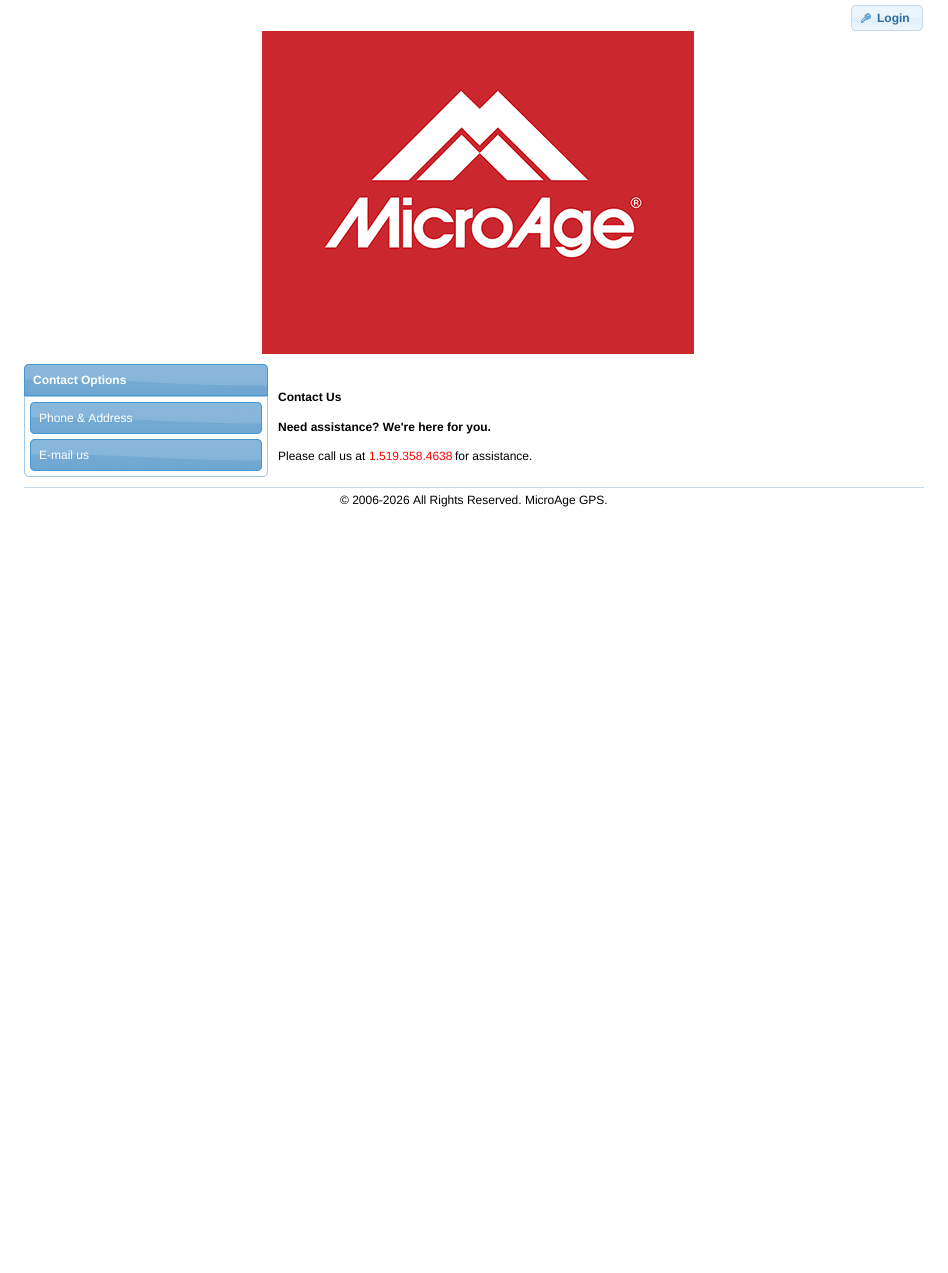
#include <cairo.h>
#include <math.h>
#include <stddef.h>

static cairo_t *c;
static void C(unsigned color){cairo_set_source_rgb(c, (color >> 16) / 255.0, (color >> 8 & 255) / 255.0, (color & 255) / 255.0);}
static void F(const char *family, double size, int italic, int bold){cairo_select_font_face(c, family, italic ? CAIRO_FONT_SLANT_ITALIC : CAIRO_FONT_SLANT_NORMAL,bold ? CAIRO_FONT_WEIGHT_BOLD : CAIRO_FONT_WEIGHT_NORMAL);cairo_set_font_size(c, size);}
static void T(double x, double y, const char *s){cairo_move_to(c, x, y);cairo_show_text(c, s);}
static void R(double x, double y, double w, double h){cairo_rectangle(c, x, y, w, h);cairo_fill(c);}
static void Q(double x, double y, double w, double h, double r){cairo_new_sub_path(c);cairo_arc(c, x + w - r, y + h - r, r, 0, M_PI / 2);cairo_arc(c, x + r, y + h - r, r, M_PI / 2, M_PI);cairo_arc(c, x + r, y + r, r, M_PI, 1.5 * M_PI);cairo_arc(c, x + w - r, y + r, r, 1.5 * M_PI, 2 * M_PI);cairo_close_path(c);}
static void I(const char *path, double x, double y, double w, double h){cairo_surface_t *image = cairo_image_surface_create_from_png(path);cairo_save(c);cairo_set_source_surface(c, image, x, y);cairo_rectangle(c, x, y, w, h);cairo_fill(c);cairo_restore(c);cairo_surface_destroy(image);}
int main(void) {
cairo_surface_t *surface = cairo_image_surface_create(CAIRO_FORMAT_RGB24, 948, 1273);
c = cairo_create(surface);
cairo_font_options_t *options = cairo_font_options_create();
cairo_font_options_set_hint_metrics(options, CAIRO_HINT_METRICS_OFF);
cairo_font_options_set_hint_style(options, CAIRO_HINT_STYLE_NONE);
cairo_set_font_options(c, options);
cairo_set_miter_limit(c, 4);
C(0xffffff);
cairo_paint(c);
I("1.png",851,5,72,26);
Q(851.5,5.5,71,25,4.5);
C(0xc5dbec);
cairo_set_line_width(c,1);
cairo_stroke(c);
I("2.png",861,13,10,10);
F("Liberation Sans",12,0,1);
C(0x2e6e9e);
T(877,22,"Login");
I("3.png",262,31,432,323);
I("4.png",24,364,244,31);
cairo_new_path(c);
cairo_move_to(c,29,364.5);
cairo_line_to(c,263,364.5);
cairo_curve_to(c,265.5,364.5,267.5,366.5,267.5,369);
cairo_line_to(c,267.5,395.5);
cairo_line_to(c,24.5,395.5);
cairo_line_to(c,24.5,369);
cairo_curve_to(c,24.5,366.5,26.5,364.5,29,364.5);
cairo_close_path(c);
C(0x4297d7);
cairo_stroke(c);
C(0xffffff);
T(33,384,"Contact Options");
C(0xfcfdfd);
cairo_new_path(c);
cairo_move_to(c,24.5,396.5);
cairo_line_to(c,267.5,396.5);
cairo_line_to(c,267.5,472);
cairo_curve_to(c,267.5,474.5,265.5,476.5,263,476.5);
cairo_line_to(c,29,476.5);
cairo_curve_to(c,26.5,476.5,24.5,474.5,24.5,472);
cairo_close_path(c);
cairo_fill_preserve(c);
C(0xa6c9e2);
cairo_stroke(c);
I("5.png",30,402,232,32);
Q(30.5,402.5,231,31,4.5);
C(0x4297d7);
cairo_stroke(c);
F("Liberation Sans",12,0,0);
C(0xffffff);
T(39,422,"Phone & Address");
I("5.png",30,439,232,32);
Q(30.5,439.5,231,31,4.5);
C(0x4297d7);
cairo_stroke(c);
C(0xffffff);
T(39,459,"E-mail us");
F("Liberation Sans",12,0,1);
C(0x000000);
T(278,401,"Contact Us");
T(278,431,"Need assistance? We're here for you.");
F("Liberation Sans",12,0,0);
T(278,460,"Please call us at");
C(0xff0000);
T(369,460,"1.519.358.4638");
C(0x000000);
T(455,460,"for assistance.");
C(0xc5dbec);
R(24,487,900,1);
C(0x000000);
T(340,504,"© 2006-2026 All Rights Reserved. MicroAge GPS.");
cairo_surface_write_to_png(surface, "o.png");
cairo_font_options_destroy(options);
cairo_destroy(c);
cairo_surface_destroy(surface);
return 0;
}
